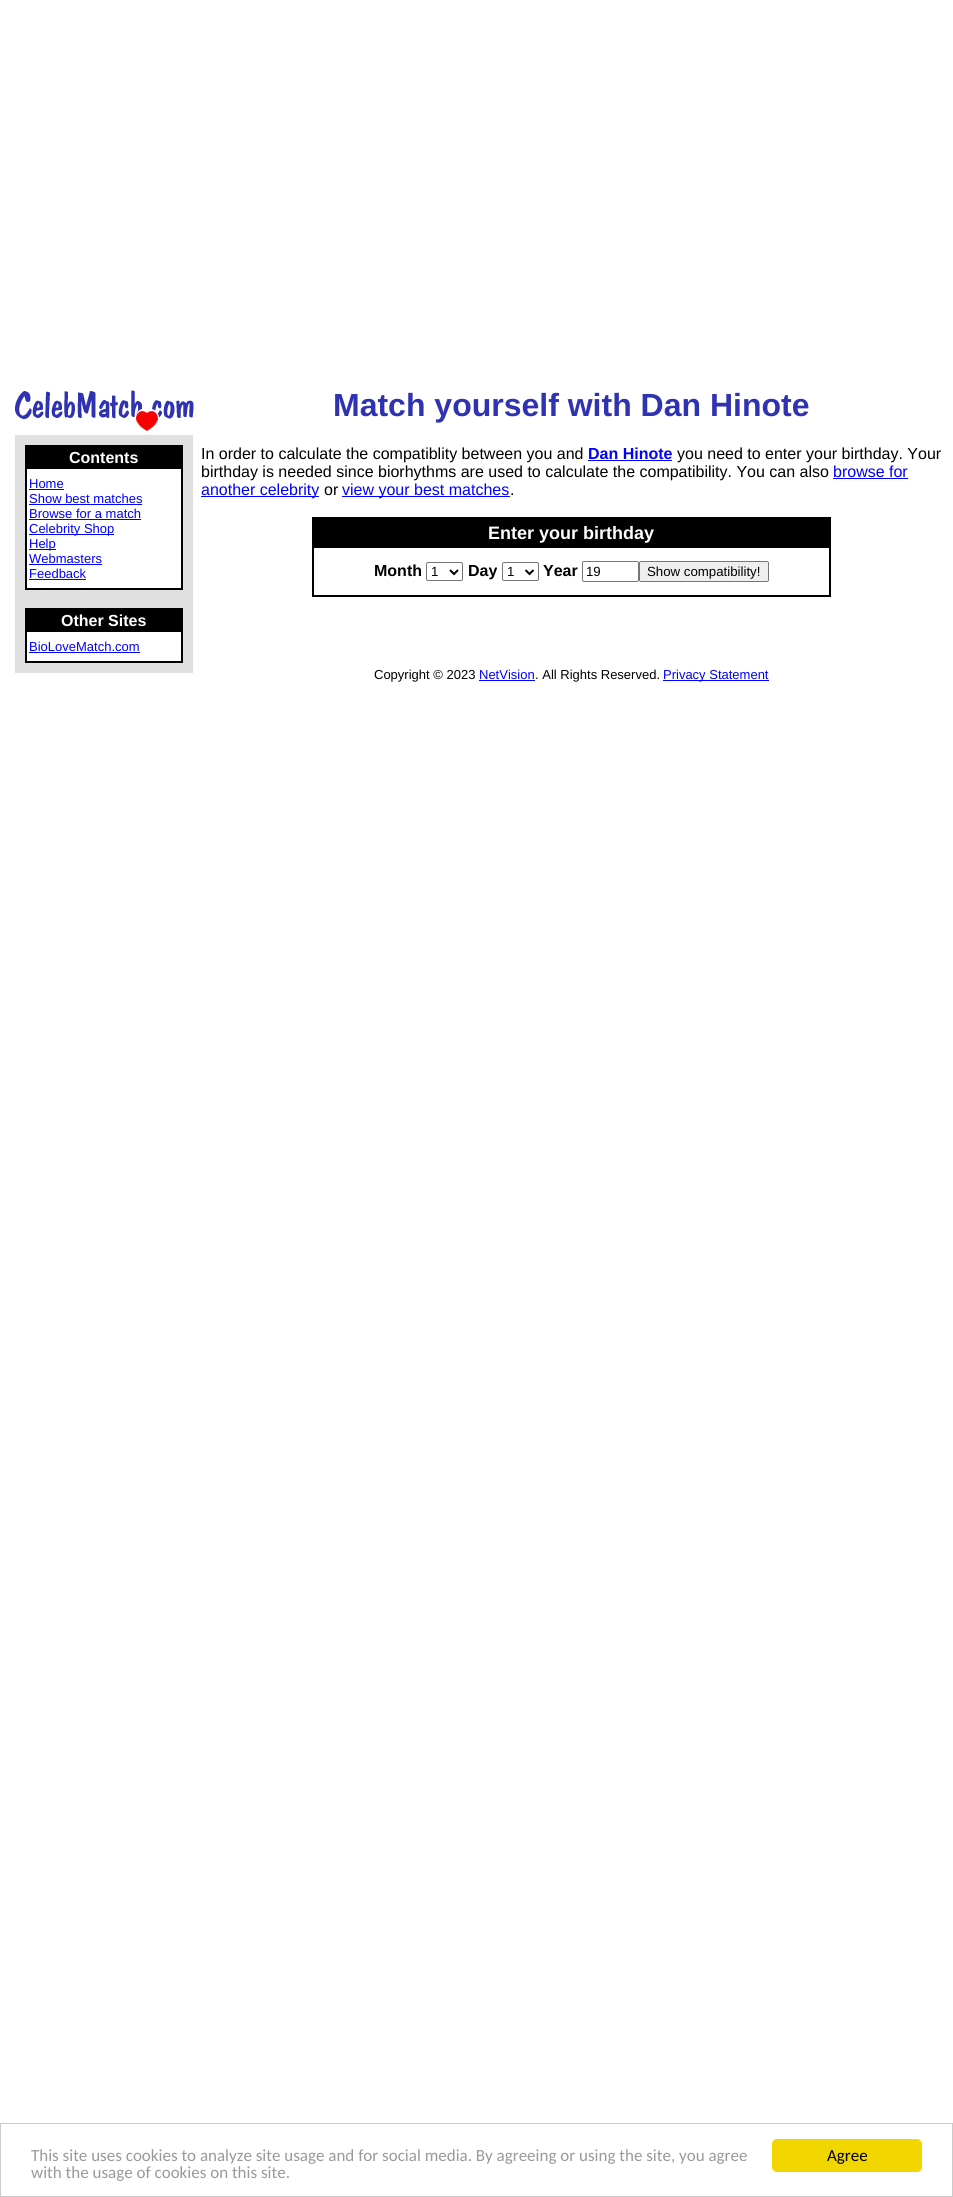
#include <cairo.h>
#include <math.h>
#include <stddef.h>

static cairo_t *c;
static void C(unsigned color){cairo_set_source_rgb(c, (color >> 16) / 255.0, (color >> 8 & 255) / 255.0, (color & 255) / 255.0);}
static void F(const char *family, double size, int italic, int bold){cairo_select_font_face(c, family, italic ? CAIRO_FONT_SLANT_ITALIC : CAIRO_FONT_SLANT_NORMAL,bold ? CAIRO_FONT_WEIGHT_BOLD : CAIRO_FONT_WEIGHT_NORMAL);cairo_set_font_size(c, size);}
static void T(double x, double y, const char *s){cairo_move_to(c, x, y);cairo_show_text(c, s);}
static void R(double x, double y, double w, double h){cairo_rectangle(c, x, y, w, h);cairo_fill(c);}
static void Q(double x, double y, double w, double h, double r){cairo_new_sub_path(c);cairo_arc(c, x + w - r, y + h - r, r, 0, M_PI / 2);cairo_arc(c, x + r, y + h - r, r, M_PI / 2, M_PI);cairo_arc(c, x + r, y + r, r, M_PI, 1.5 * M_PI);cairo_arc(c, x + w - r, y + r, r, 1.5 * M_PI, 2 * M_PI);cairo_close_path(c);}
static void I(const char *path, double x, double y, double w, double h){cairo_surface_t *image = cairo_image_surface_create_from_png(path);cairo_save(c);cairo_set_source_surface(c, image, x, y);cairo_rectangle(c, x, y, w, h);cairo_fill(c);cairo_restore(c);cairo_surface_destroy(image);}
int main(void) {
cairo_surface_t *surface = cairo_image_surface_create(CAIRO_FORMAT_RGB24, 953, 2197);
c = cairo_create(surface);
cairo_font_options_t *options = cairo_font_options_create();
cairo_font_options_set_hint_metrics(options, CAIRO_HINT_METRICS_OFF);
cairo_font_options_set_hint_style(options, CAIRO_HINT_STYLE_NONE);
cairo_set_font_options(c, options);
cairo_set_miter_limit(c, 4);
C(0xffffff);
cairo_paint(c);
I("1.png",15,390,179,41);
C(0xe0e0e0);
R(15,435,178,238);
C(0x000000);
R(25,445,158,145);
C(0xffffff);
R(27,469,154,119);
F("Liberation Sans",16,0,1);
T(69,463,"Contents");
F("Liberation Sans",13,0,0);
C(0x0000ff);
T(29,488,"Home");
R(29,489,35,1);
T(29,503,"Show best matches");
R(29,504,113,1);
T(29,518,"Browse for a match");
R(29,519,112,1);
R(29,534,85,1);
T(29,533,"Celebrity Shop");
R(29,549,27,1);
T(29,548,"Help");
T(29,563,"Webmasters");
R(29,564,73,1);
T(29,578,"Feedback");
R(29,579,57,1);
C(0x000000);
R(25,608,158,55);
C(0xffffff);
R(27,632,154,29);
F("Liberation Sans",16,0,1);
T(61,626,"Other Sites");
F("Liberation Sans",13,0,0);
C(0x0000ff);
T(29,651,"BioLoveMatch.com");
R(29,652,111,1);
F("Liberation Sans",32,0,1);
C(0x2f32b1);
T(333,416,"Match yourself with Dan Hinote");
F("Liberation Sans",16,0,0);
C(0x000000);
T(201,459,"In order to calculate the compatiblity between you and");
F("Liberation Sans",16,0,1);
C(0x0000ff);
T(588,459,"Dan Hinote");
R(588,460,84,1);
F("Liberation Sans",16,0,0);
C(0x000000);
T(677,459,"you need to enter your birthday. Your");
T(201,477,"birthday is needed since biorhythms are used to calculate the compatibility. You can also");
C(0x0000ff);
T(833,477,"browse for");
R(833,478,75,1);
R(201,496,118,1);
T(201,495,"another celebrity");
C(0x000000);
T(324,495,"or");
C(0x0000ff);
R(342,496,168,1);
T(342,495,"view your best matches");
C(0x000000);
T(510,495,".");
R(312,517,519,80);
C(0xffffff);
R(314,548,515,47);
F("Liberation Sans",18,0,1);
T(488,539,"Enter your birthday");
F("Liberation Sans",16,0,1);
C(0x000000);
T(374,576,"Month");
Q(426.5,562.5,36,18,1.5);
C(0x767676);
cairo_set_line_width(c,1);
cairo_stroke(c);
cairo_new_path(c);
cairo_move_to(c,450,570);
cairo_line_to(c,454,574);
cairo_line_to(c,458,570);
C(0x000000);
cairo_set_line_width(c,2);
cairo_stroke(c);
F("Liberation Sans",13.25,0,0);
T(431,576,"1");
F("Liberation Sans",16,0,1);
T(468,576,"Day");
Q(502.5,562.5,36,18,1.5);
C(0x767676);
cairo_set_line_width(c,1);
cairo_stroke(c);
cairo_new_path(c);
cairo_move_to(c,525.5,570);
cairo_line_to(c,529.5,574);
cairo_line_to(c,533.5,570);
C(0x000000);
cairo_set_line_width(c,2);
cairo_stroke(c);
F("Liberation Sans",13.25,0,0);
T(507,576,"1");
F("Liberation Sans",16,0,1);
T(543,576,"Year");
Q(582.5,561.5,56,20,1.5);
C(0x767676);
cairo_set_line_width(c,1);
cairo_stroke(c);
F("Liberation Sans",13.25,0,0);
C(0x000000);
T(586,576,"19");
C(0xefefef);
Q(639.5,561.5,129,20,1.5);
cairo_fill_preserve(c);
C(0x767676);
cairo_stroke(c);
C(0x000000);
T(647,576,"Show compatibility!");
F("Liberation Sans",13,0,0);
T(374,679,"Copyright © 2023");
C(0x0000ff);
T(479,679,"NetVision");
C(0x000000);
T(535,679,". All Rights Reserved.");
C(0x0000ff);
R(479,680,56,1);
R(663,680,106,1);
T(663,679,"Privacy Statement");
cairo_rectangle(c,.5,2123.5,952,73);
C(0xcccccc);
cairo_stroke(c);
F("Carlito",17,0,0);
C(0x999999);
T(31,2161,"This site uses cookies to analyze site usage and for social media. By agreeing or using the site, you agree");
T(31,2178,"with the usage of cookies on this site.");
C(0xf1d600);
Q(772,2139,150,33,5);
cairo_fill(c);
C(0x000000);
T(827,2161,"Agree");
cairo_surface_write_to_png(surface, "o.png");
cairo_font_options_destroy(options);
cairo_destroy(c);
cairo_surface_destroy(surface);
return 0;
}
